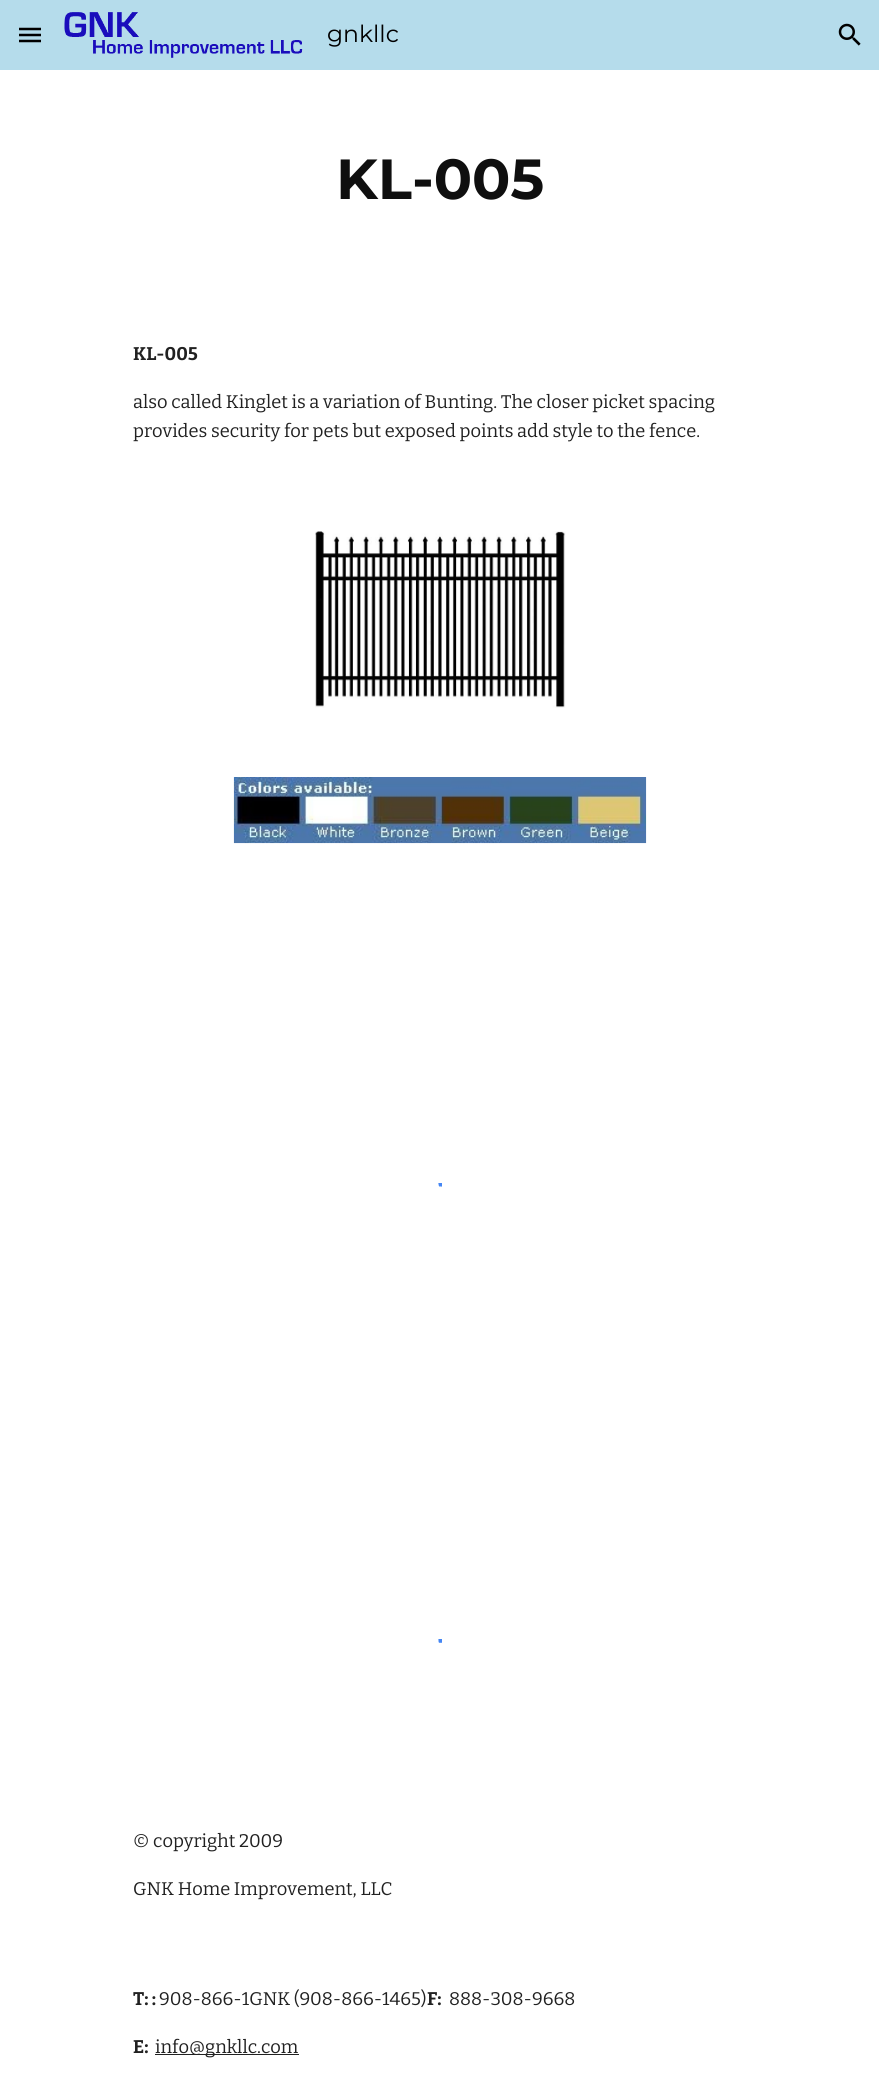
#include <cairo.h>
#include <math.h>
#include <stddef.h>

static cairo_t *c;
static void C(unsigned color){cairo_set_source_rgb(c, (color >> 16) / 255.0, (color >> 8 & 255) / 255.0, (color & 255) / 255.0);}
static void F(const char *family, double size, int italic, int bold){cairo_select_font_face(c, family, italic ? CAIRO_FONT_SLANT_ITALIC : CAIRO_FONT_SLANT_NORMAL,bold ? CAIRO_FONT_WEIGHT_BOLD : CAIRO_FONT_WEIGHT_NORMAL);cairo_set_font_size(c, size);}
static void T(double x, double y, const char *s){cairo_move_to(c, x, y);cairo_show_text(c, s);}
static void R(double x, double y, double w, double h){cairo_rectangle(c, x, y, w, h);cairo_fill(c);}
static void I(const char *path, double x, double y, double w, double h){cairo_surface_t *image = cairo_image_surface_create_from_png(path);cairo_save(c);cairo_set_source_surface(c, image, x, y);cairo_rectangle(c, x, y, w, h);cairo_fill(c);cairo_restore(c);cairo_surface_destroy(image);}
int main(void) {
cairo_surface_t *surface = cairo_image_surface_create(CAIRO_FORMAT_RGB24, 879, 2094);
c = cairo_create(surface);
cairo_font_options_t *options = cairo_font_options_create();
cairo_font_options_set_hint_metrics(options, CAIRO_HINT_METRICS_OFF);
cairo_font_options_set_hint_style(options, CAIRO_HINT_STYLE_NONE);
cairo_set_font_options(c, options);
cairo_set_miter_limit(c, 4);
C(0xffffff);
cairo_paint(c);
C(0xb5dceb);
R(0,0,879,70);
cairo_new_path(c);
cairo_move_to(c,19,29);
cairo_line_to(c,41,29);
cairo_move_to(c,19,35);
cairo_line_to(c,41,35);
cairo_move_to(c,19,41);
cairo_line_to(c,41,41);
C(0x000000);
cairo_set_line_width(c,2.5);
cairo_stroke(c);
I("1.png",64,12,239,46);
F("Montserrat",23.5,0,0);
T(327,42,"gnkllc");
I("2.png",838,23,23,23);
F("Montserrat",56.5,0,1);
C(0x0f0f0f);
T(336,199,"KL-005");
F("Bitter",18.3,0,1);
C(0x212121);
T(133,360,"KL-005");
F("Bitter",18.3,0,0);
T(133,408,"also called Kinglet is a variation of Bunting. The closer picket spacing");
T(133,437,"provides security for pets but exposed points add style to the fence.");
I("3.png",315,531,251,177);
I("4.png",233,777,414,67);
cairo_save(c);
cairo_rectangle(c,423,1183,17,35);
cairo_clip(c);
cairo_new_path(c);
cairo_move_to(c,438.5,1184);
cairo_curve_to(c,441.5,1183.5,445,1184.5,447.5,1185.5);
cairo_curve_to(c,461,1193,456.5,1213.5,441.5,1215);
C(0x4486f4);
cairo_set_line_width(c,3.7);
cairo_stroke(c);
cairo_restore(c);
cairo_save(c);
cairo_rectangle(c,439,1183,3,35);
cairo_clip(c);
cairo_new_path(c);
cairo_move_to(c,429,1211);
cairo_curve_to(c,425.5,1207.5,423.5,1202,424.5,1197);
cairo_curve_to(c,428.5,1178.5,455.5,1181.5,455.5,1200);
cairo_curve_to(c,455.5,1204,454,1208,451,1211);
C(0x4486f4);
cairo_set_line_width(c,3.8);
cairo_stroke(c);
cairo_restore(c);
cairo_save(c);
cairo_rectangle(c,423,1639,17,35);
cairo_clip(c);
cairo_new_path(c);
cairo_move_to(c,438.5,1640.5);
cairo_curve_to(c,454,1639.5,461.5,1659,450,1668.5);
cairo_curve_to(c,447.5,1670.5,444.5,1671.5,441.5,1672);
C(0x4486f4);
cairo_set_line_width(c,3.7);
cairo_stroke(c);
cairo_restore(c);
cairo_save(c);
cairo_rectangle(c,439,1639,3,35);
cairo_clip(c);
cairo_new_path(c);
cairo_move_to(c,429,1667.5);
cairo_curve_to(c,425.5,1663.5,423.5,1658.5,424.5,1653);
cairo_curve_to(c,428.5,1635,455.5,1637.5,455.5,1656);
cairo_curve_to(c,455.5,1660.5,454,1664.5,451,1667.5);
C(0x4486f4);
cairo_set_line_width(c,3.8);
cairo_stroke(c);
cairo_restore(c);
cairo_save(c);
cairo_rectangle(c,440,1639,18,35);
cairo_clip(c);
cairo_new_path(c);
cairo_move_to(c,438.5,1672);
cairo_curve_to(c,423.5,1670.5,419,1650,432.5,1642.5);
cairo_curve_to(c,435,1641,438.5,1640.5,441.5,1640.5);
cairo_move_to(c,438.5,1672);
cairo_curve_to(c,423.5,1670.5,419,1650,432.5,1642.5);
cairo_curve_to(c,435,1641,438.5,1640.5,441.5,1640.5);
cairo_move_to(c,438.5,1672);
cairo_curve_to(c,423.5,1670.5,419,1650,432.5,1642.5);
cairo_curve_to(c,435,1641,438.5,1640.5,441.5,1640.5);
cairo_move_to(c,438.5,1672);
cairo_curve_to(c,423.5,1670.5,419,1650,432.5,1642.5);
cairo_curve_to(c,435,1641,438.5,1640.5,441.5,1640.5);
C(0x4486f4);
cairo_set_line_width(c,3.7);
cairo_stroke(c);
cairo_restore(c);
T(133,1847,"© copyright 2009");
T(133,1895,"GNK Home Improvement, LLC");
F("Bitter",18.3,0,1);
T(133,2005,"T: :");
F("Bitter",18.3,0,0);
T(159,2005,"908-866-1GNK (908-866-1465)");
F("Bitter",18.3,0,1);
T(427,2005,"F:");
F("Bitter",18.3,0,0);
T(449,2005,"888-308-9668");
F("Bitter",18.3,0,1);
T(133,2053,"E:");
R(155,2054,144,1);
F("Bitter",18.3,0,0);
T(155,2053,"info@gnkllc.com");
cairo_surface_write_to_png(surface, "o.png");
cairo_font_options_destroy(options);
cairo_destroy(c);
cairo_surface_destroy(surface);
return 0;
}
